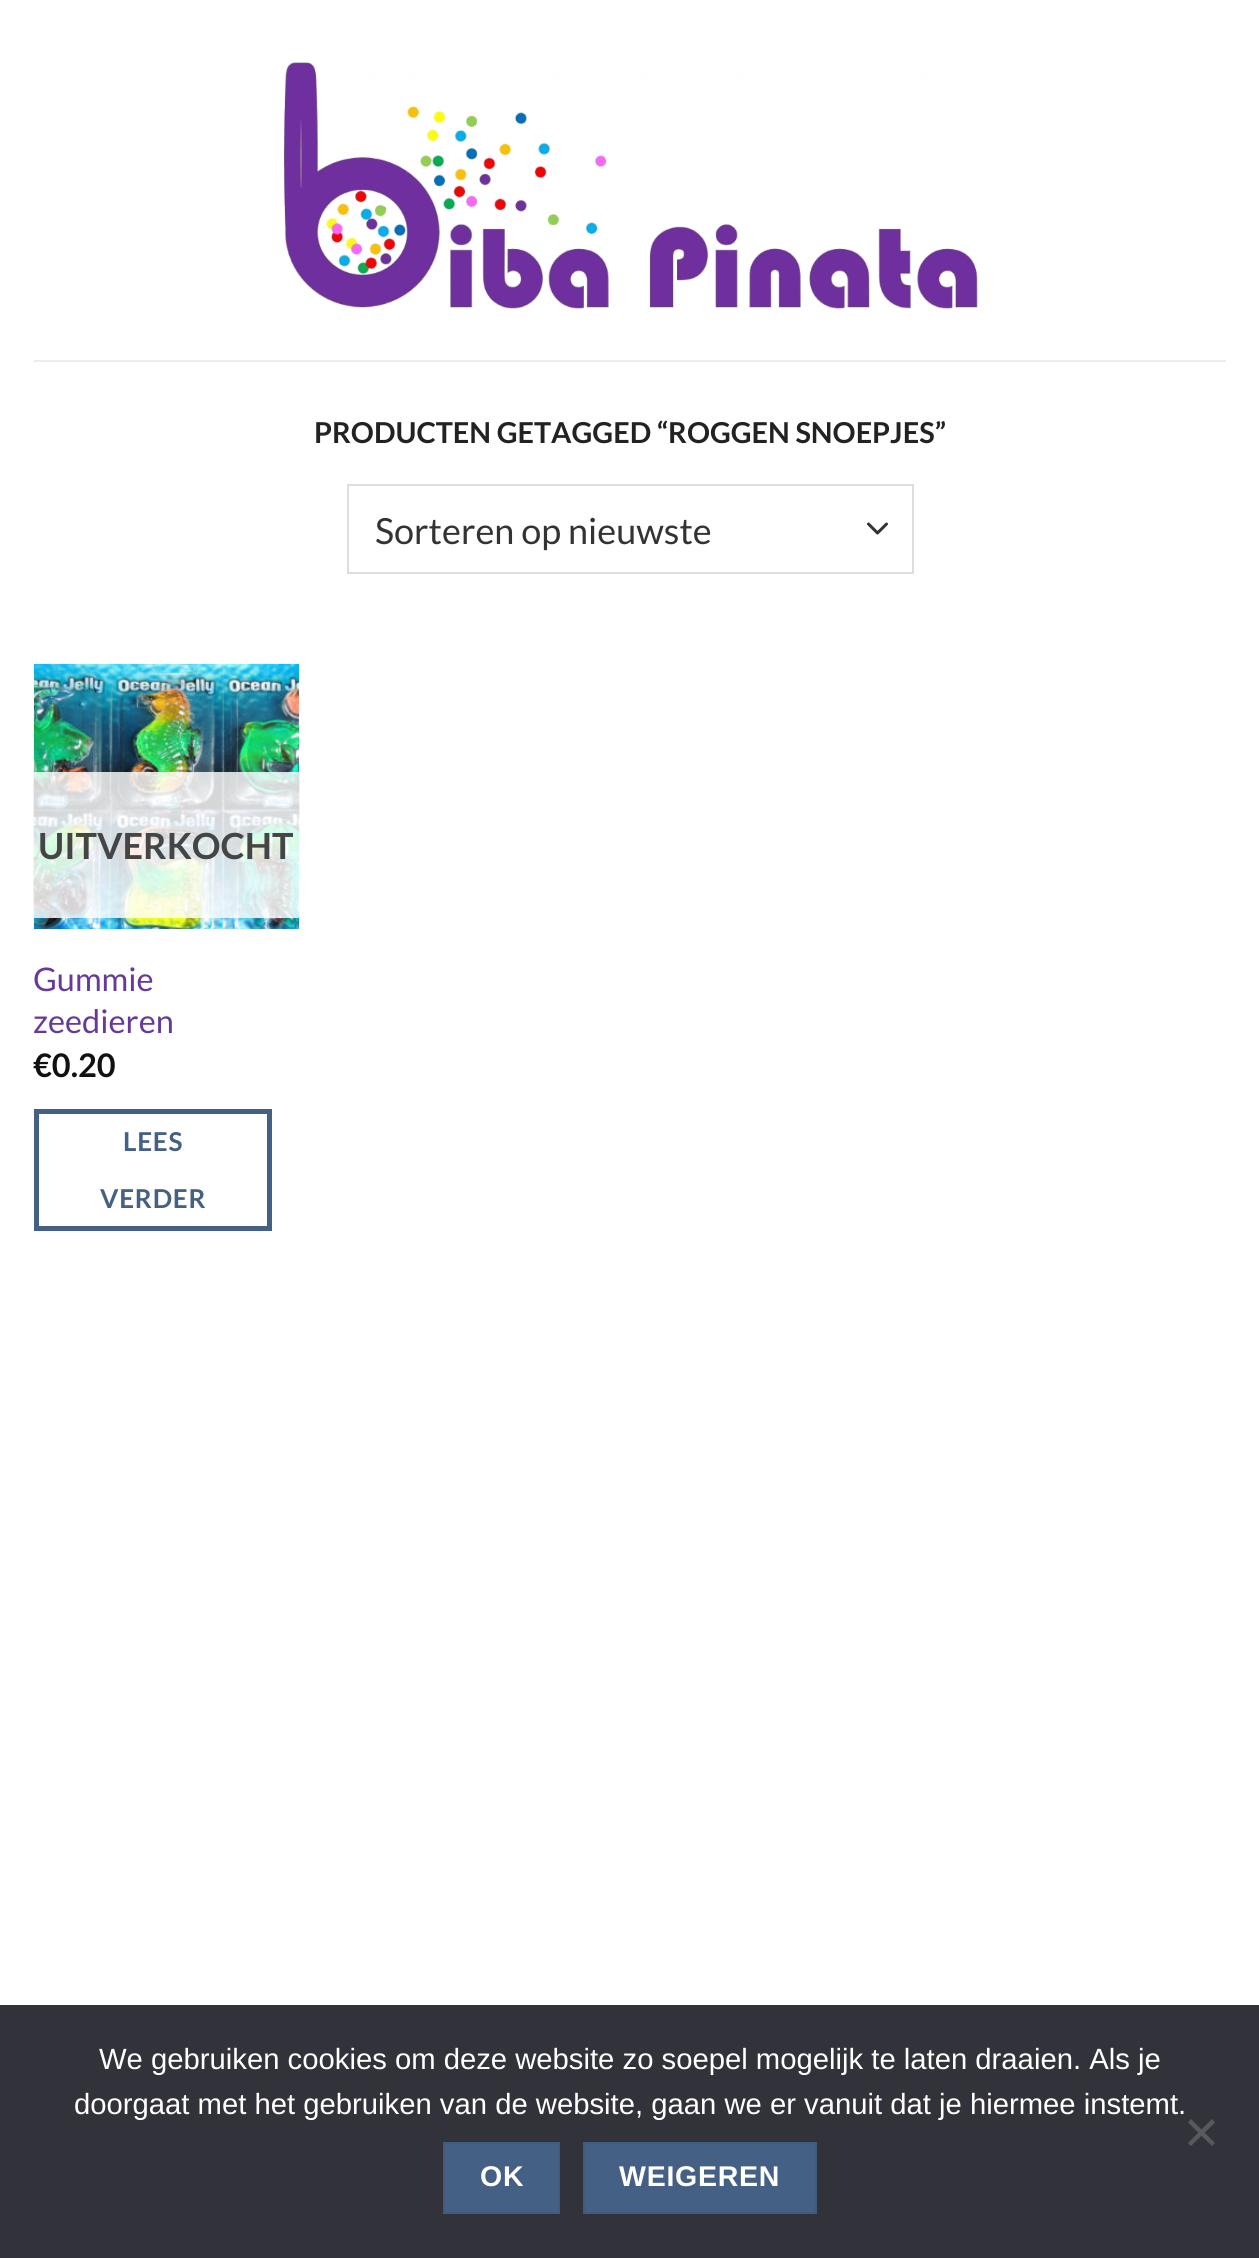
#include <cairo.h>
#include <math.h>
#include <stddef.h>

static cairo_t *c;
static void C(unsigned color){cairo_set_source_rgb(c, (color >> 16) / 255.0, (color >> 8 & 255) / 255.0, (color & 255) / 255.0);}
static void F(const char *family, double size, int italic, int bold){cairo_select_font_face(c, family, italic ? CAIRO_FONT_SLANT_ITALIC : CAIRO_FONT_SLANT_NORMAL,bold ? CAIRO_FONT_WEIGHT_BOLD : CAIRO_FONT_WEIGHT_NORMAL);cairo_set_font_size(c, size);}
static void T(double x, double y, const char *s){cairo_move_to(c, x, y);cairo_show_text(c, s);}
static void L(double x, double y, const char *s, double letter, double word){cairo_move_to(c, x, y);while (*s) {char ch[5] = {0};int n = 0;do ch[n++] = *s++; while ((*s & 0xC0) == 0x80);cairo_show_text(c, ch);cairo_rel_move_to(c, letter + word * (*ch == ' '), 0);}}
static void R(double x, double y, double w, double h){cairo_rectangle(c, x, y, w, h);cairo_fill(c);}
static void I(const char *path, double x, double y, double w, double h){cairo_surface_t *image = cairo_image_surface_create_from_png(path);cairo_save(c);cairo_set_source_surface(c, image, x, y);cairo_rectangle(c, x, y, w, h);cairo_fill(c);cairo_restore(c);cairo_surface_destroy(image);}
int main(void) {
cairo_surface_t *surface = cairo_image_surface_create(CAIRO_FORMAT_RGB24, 1259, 2258);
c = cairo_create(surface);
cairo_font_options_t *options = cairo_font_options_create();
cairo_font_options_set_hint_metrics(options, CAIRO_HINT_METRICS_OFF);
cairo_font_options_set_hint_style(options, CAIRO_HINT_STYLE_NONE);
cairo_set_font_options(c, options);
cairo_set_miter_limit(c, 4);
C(0xffffff);
cairo_paint(c);
I("1.png",284,62,694,247);
C(0xededed);
R(34,360,1192,2);
F("Lato",28.8,0,1);
C(0x222222);
T(314,443,"PRODUCTEN GETAGGED “ROGGEN SNOEPJES”");
cairo_new_path(c);
cairo_move_to(c,868.5,524);
cairo_line_to(c,877.5,533);
cairo_line_to(c,886.5,524);
C(0x333333);
cairo_set_line_width(c,3);
cairo_set_line_cap(c,CAIRO_LINE_CAP_ROUND);
cairo_set_line_join(c,CAIRO_LINE_JOIN_ROUND);
cairo_stroke(c);
cairo_rectangle(c,348,485,565,88);
C(0xdddddd);
cairo_set_line_width(c,2);
cairo_set_line_cap(c,CAIRO_LINE_CAP_BUTT);
cairo_set_line_join(c,CAIRO_LINE_JOIN_MITER);
cairo_stroke(c);
F("Lato",36,0,0);
C(0x333333);
T(375,544,"Sorteren op nieuwste");
I("2.png",33,663,267,267);
cairo_set_source_rgba(c,1,1,1,0.81);
R(34,772,265,146);
F("Lato",36,0,1);
C(0x444545);
T(38,859,"UITVERKOCHT");
F("Lato",32.5,0,0);
C(0x66399b);
T(33,991,"Gummie");
T(33,1033,"zeedieren");
F("Lato",32.5,0,1);
C(0x111111);
T(33,1077,"€0.20");
cairo_rectangle(c,36.5,1111.5,233,117);
C(0x446084);
cairo_set_line_width(c,5);
cairo_stroke(c);
F("Lato",26,0,1);
L(123,1151,"LEES",.75,0);
L(100,1208,"VERDER",.75,0);
C(0x32323a);
R(0,2005,1259,253);
F("Liberation Sans",29.25,0,0);
C(0xffffff);
T(99,2069,"We gebruiken cookies om deze website zo soepel mogelijk te laten draaien. Als je");
T(74,2114,"doorgaat met het gebruiken van de website, gaan we er vanuit dat je hiermee instemt.");
C(0x59595d);
cairo_new_path(c);
cairo_move_to(c,1212,2119);
cairo_line_to(c,1215,2122.5);
cairo_line_to(c,1191,2146);
cairo_line_to(c,1188,2143);
cairo_close_path(c);
cairo_fill(c);
cairo_new_path(c);
cairo_move_to(c,1188,2122.5);
cairo_line_to(c,1191,2119);
cairo_line_to(c,1215,2143);
cairo_line_to(c,1212,2146);
cairo_close_path(c);
cairo_fill(c);
C(0x446084);
cairo_rectangle(c,444,2143,115,70);
cairo_fill_preserve(c);
C(0x415b7d);
cairo_set_line_width(c,2);
cairo_stroke(c);
F("Liberation Sans",28.5,0,1);
C(0xffffff);
L(480,2186,"OK",.75,0);
C(0x446084);
cairo_rectangle(c,584,2143,232,70);
cairo_fill_preserve(c);
C(0x415b7d);
cairo_stroke(c);
C(0xffffff);
L(619,2186,"WEIGEREN",.75,0);
cairo_surface_write_to_png(surface, "o.png");
cairo_font_options_destroy(options);
cairo_destroy(c);
cairo_surface_destroy(surface);
return 0;
}
